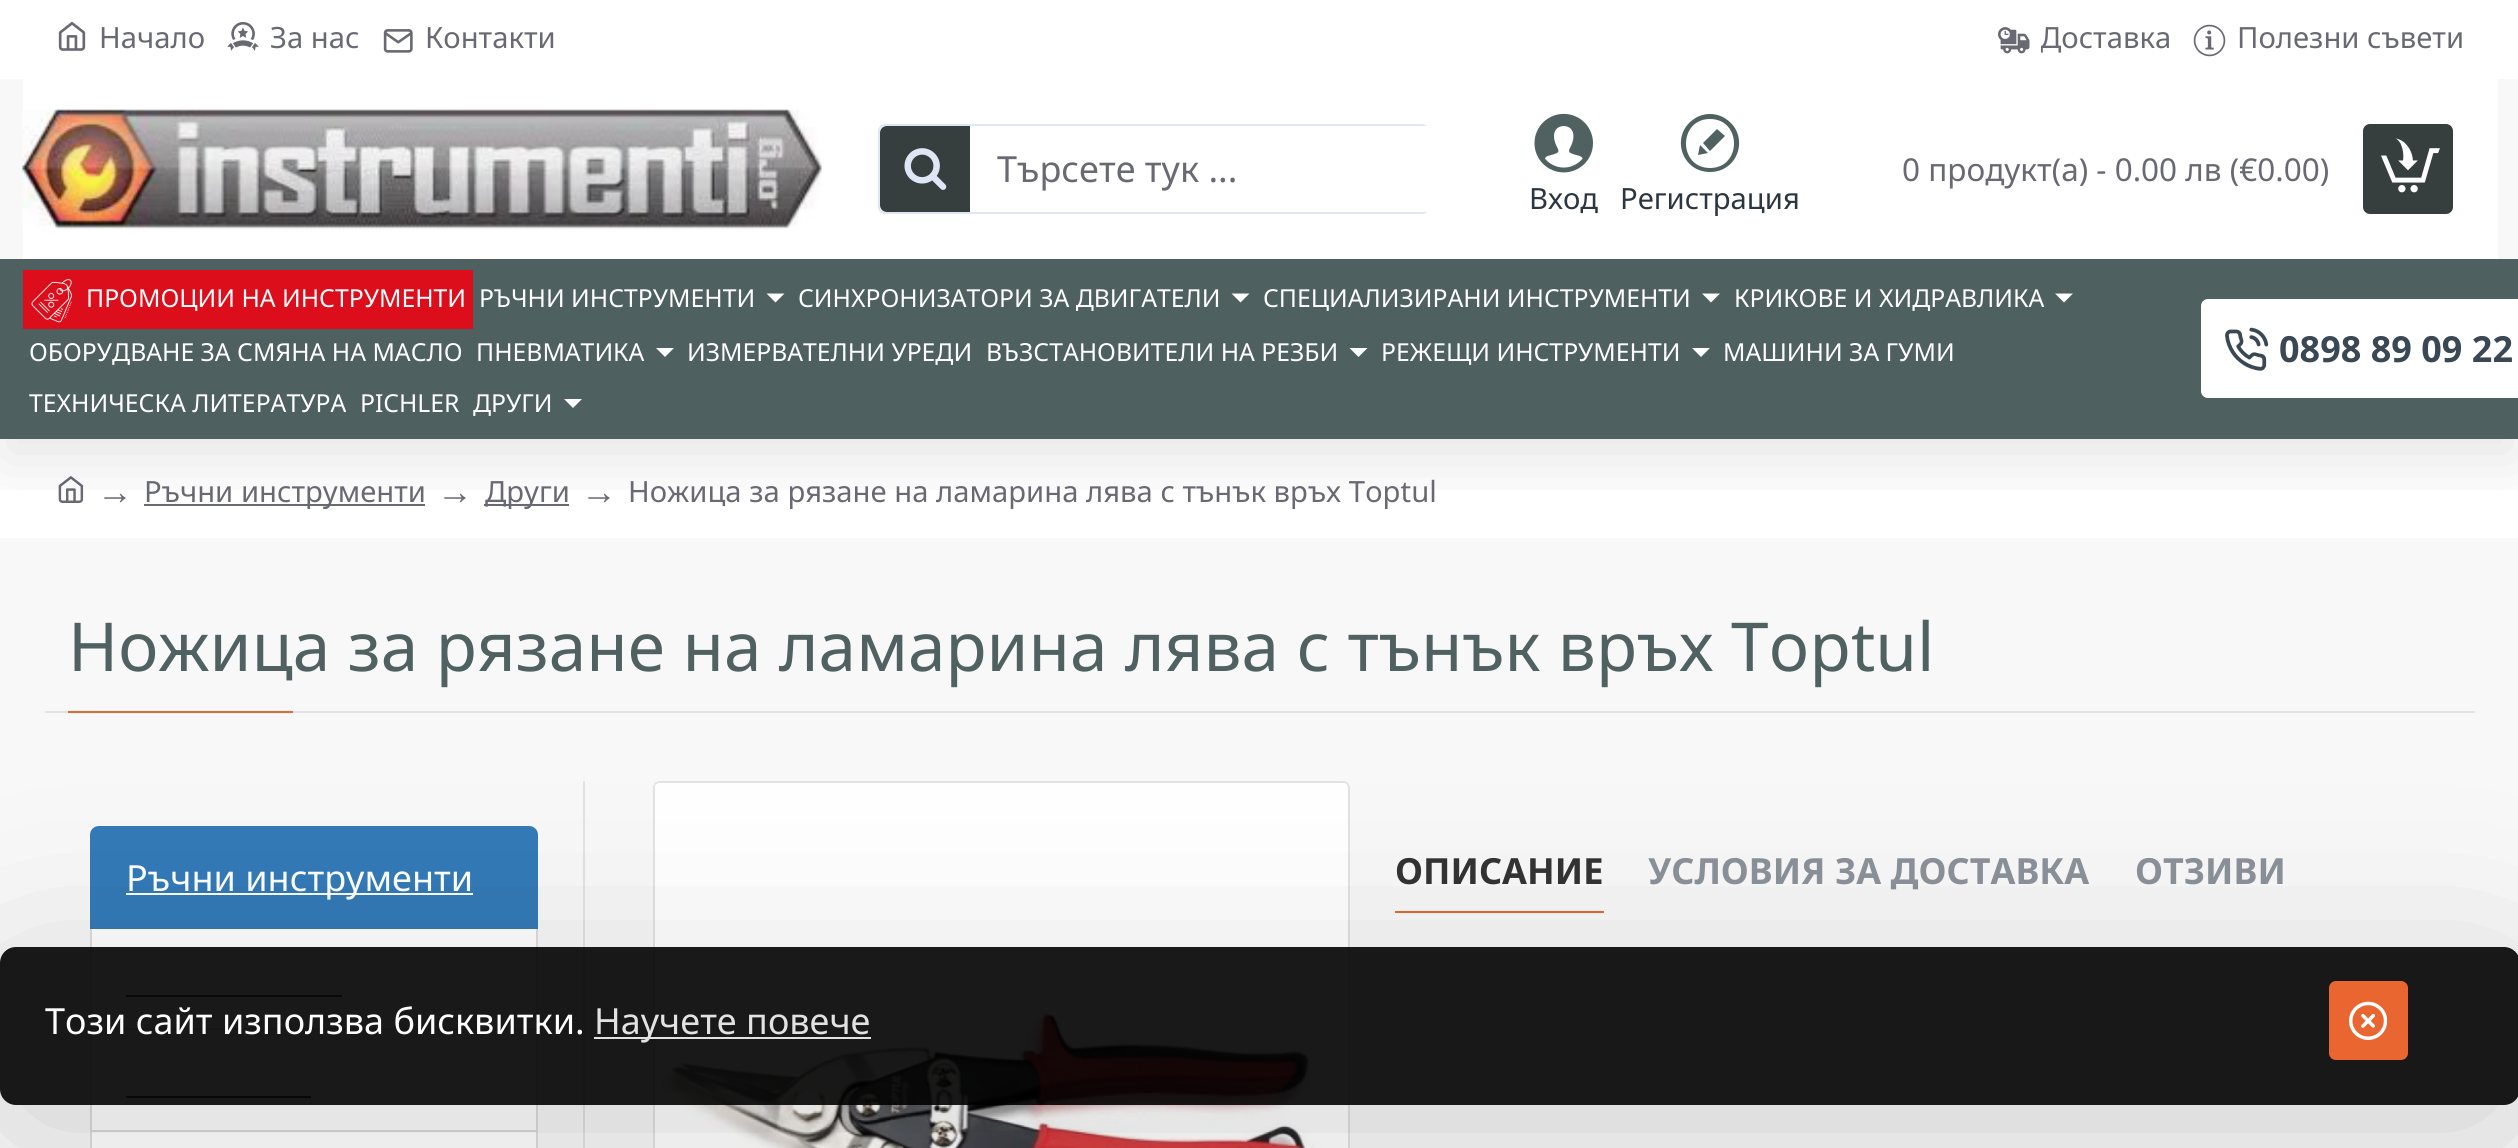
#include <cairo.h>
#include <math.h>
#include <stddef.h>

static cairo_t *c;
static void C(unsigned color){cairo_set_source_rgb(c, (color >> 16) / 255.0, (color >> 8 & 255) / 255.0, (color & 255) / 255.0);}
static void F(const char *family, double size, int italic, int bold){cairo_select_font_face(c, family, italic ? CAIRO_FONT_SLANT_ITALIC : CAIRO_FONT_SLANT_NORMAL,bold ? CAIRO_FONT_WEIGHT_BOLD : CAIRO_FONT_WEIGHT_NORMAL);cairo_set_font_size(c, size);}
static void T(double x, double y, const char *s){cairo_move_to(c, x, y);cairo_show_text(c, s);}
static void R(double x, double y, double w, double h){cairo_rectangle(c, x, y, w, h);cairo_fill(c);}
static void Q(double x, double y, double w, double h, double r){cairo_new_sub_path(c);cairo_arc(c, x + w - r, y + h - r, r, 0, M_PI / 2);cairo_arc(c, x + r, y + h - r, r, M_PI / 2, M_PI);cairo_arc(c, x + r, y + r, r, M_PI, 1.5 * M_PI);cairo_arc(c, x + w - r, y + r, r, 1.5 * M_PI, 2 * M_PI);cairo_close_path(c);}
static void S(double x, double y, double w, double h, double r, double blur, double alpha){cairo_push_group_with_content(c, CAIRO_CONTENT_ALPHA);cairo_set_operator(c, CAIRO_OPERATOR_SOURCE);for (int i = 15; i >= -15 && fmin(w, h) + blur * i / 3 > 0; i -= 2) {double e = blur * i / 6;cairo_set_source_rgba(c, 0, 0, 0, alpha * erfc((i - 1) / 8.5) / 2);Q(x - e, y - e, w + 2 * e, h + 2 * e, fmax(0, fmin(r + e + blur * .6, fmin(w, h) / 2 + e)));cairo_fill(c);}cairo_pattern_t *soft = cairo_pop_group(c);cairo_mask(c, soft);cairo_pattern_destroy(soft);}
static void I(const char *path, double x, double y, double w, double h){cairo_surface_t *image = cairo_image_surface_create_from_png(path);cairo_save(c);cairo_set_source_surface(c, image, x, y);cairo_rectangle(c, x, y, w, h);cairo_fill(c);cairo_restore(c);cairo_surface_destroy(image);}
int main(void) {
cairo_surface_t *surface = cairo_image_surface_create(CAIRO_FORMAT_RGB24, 2518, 1148);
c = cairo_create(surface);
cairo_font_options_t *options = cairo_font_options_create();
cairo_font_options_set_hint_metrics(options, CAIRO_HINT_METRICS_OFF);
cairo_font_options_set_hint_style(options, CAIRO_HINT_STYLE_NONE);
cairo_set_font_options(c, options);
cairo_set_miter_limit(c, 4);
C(0xf8f8f8);
cairo_paint(c);
C(0xffffff);
R(0,439,2518,99);
I("12.png",58,476,26,27);
C(0x696973);
R(144,504,281,2);
R(484,504,85,2);
cairo_save(c);
cairo_rectangle(c,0,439,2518,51);
cairo_clip(c);
C(0x000000);
S(0,23,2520,438,0,34,.1);
cairo_restore(c);
C(0xffffff);
R(0,0,2518,79);
I("1.png",58,21,28,30);
F("Noto Sans",29.25,0,0);
C(0x696973);
T(99,48,"Начало");
I("2.png",227,21,32,30);
T(270,48,"За нас");
I("3.png",383,29,30,24);
T(425,48,"Контакти");
I("4.png",1998,27,32,27);
cairo_save(c);
cairo_rectangle(c,2041,16,130,47);
cairo_clip(c);
T(2040,48,"Доставка");
cairo_restore(c);
I("5.png",2193,24,33,33);
T(2237,48,"Полезни съвети");
C(0xffffff);
R(23,79,2475,180);
I("6.png",22,109,800,121);
Q(879,125,549,88,6);
C(0xdfe7f6);
cairo_stroke(c);
C(0x363e3e);
cairo_new_path(c);
cairo_move_to(c,887,126);
cairo_line_to(c,970,126);
cairo_line_to(c,970,212);
cairo_line_to(c,887,212);
cairo_curve_to(c,883,212,880,209,880,205);
cairo_line_to(c,880,133);
cairo_curve_to(c,880,129,883,126,887,126);
cairo_close_path(c);
cairo_fill(c);
I("7.png",904,148,43,42);
C(0xffffff);
Q(970,126,547,86,7);
cairo_fill(c);
F("Noto Sans",36,0,0);
C(0x696973);
T(997,182,"Търсете тук ...");
F("Noto Sans",31.5,0,0);
T(1902,181,"0 продукт(а) - 0.00 лв (€0.00)");
C(0x363e3e);
Q(2363,124,90,90,7);
cairo_fill(c);
I("8.png",2381,138,59,55);
I("9.png",1534,113,59,60);
F("Noto Sans",29.25,0,0);
C(0x2c3640);
T(1529,209,"Вход");
C(0x4f6160);
cairo_new_path(c);
cairo_move_to(c,1710,119);
cairo_curve_to(c,1742,119,1742,168,1710,168);
cairo_curve_to(c,1678,168,1678,119,1710,119);
cairo_close_path(c);
cairo_move_to(c,1710,114);
cairo_curve_to(c,1704,114,1698,116,1694,119);
cairo_curve_to(c,1670,135,1681,172,1710,172);
cairo_curve_to(c,1739,172,1750,135,1726,119);
cairo_curve_to(c,1722,116,1716,114,1710,114);
cairo_close_path(c);
cairo_move_to(c,1700,145);
cairo_line_to(c,1708,153);
cairo_line_to(c,1698,155);
cairo_close_path(c);
cairo_move_to(c,1725,136);
cairo_line_to(c,1710,151);
cairo_line_to(c,1703,143);
cairo_line_to(c,1717,129);
cairo_close_path(c);
cairo_fill(c);
C(0x2c3640);
T(1620,209,"Регистрация");
cairo_set_source_rgba(c,0.302,0.373,0.369,0.99);
R(0,259,2518,180);
C(0xdd0e1c);
R(23,270,450,59);
I("10.png",31,279,41,44);
F("Noto Sans",24.75,0,0);
C(0xffffff);
T(86,307,"ПРОМОЦИИ НА ИНСТРУМЕНТИ");
T(479,307,"РЪЧНИ ИНСТРУМЕНТИ");
cairo_new_path(c);
cairo_move_to(c,766.5,293.5);
cairo_line_to(c,784.5,293.5);
cairo_line_to(c,775.5,302.5);
cairo_close_path(c);
cairo_fill(c);
T(798,307,"СИНХРОНИЗАТОРИ ЗА ДВИГАТЕЛИ");
cairo_new_path(c);
cairo_move_to(c,1231.5,293.5);
cairo_line_to(c,1249.5,293.5);
cairo_line_to(c,1240.5,302.5);
cairo_close_path(c);
cairo_fill(c);
T(1263,307,"СПЕЦИАЛИЗИРАНИ ИНСТРУМЕНТИ");
cairo_new_path(c);
cairo_move_to(c,1702,293.5);
cairo_line_to(c,1720,293.5);
cairo_line_to(c,1711,302.5);
cairo_close_path(c);
cairo_fill(c);
T(1734,307,"КРИКОВЕ И ХИДРАВЛИКА");
cairo_new_path(c);
cairo_move_to(c,2055,293.5);
cairo_line_to(c,2073,293.5);
cairo_line_to(c,2064,302.5);
cairo_close_path(c);
cairo_fill(c);
T(29,361,"ОБОРУДВАНЕ ЗА СМЯНА НА МАСЛО");
T(476,361,"ПНЕВМАТИКА");
cairo_new_path(c);
cairo_move_to(c,656,348);
cairo_line_to(c,674,348);
cairo_line_to(c,665,357);
cairo_close_path(c);
cairo_fill(c);
T(687,361,"ИЗМЕРВАТЕЛНИ УРЕДИ");
T(986,361,"ВЪЗСТАНОВИТЕЛИ НА РЕЗБИ");
cairo_new_path(c);
cairo_move_to(c,1349.5,348);
cairo_line_to(c,1367.5,348);
cairo_line_to(c,1358.5,357);
cairo_close_path(c);
cairo_fill(c);
T(1381,361,"РЕЖЕЩИ ИНСТРУМЕНТИ");
cairo_new_path(c);
cairo_move_to(c,1692,348);
cairo_line_to(c,1710,348);
cairo_line_to(c,1701,357);
cairo_close_path(c);
cairo_fill(c);
T(1723,361,"МАШИНИ ЗА ГУМИ");
T(29,412,"ТЕХНИЧЕСКА ЛИТЕРАТУРА");
T(360,412,"PICHLER");
T(473,412,"ДРУГИ");
cairo_new_path(c);
cairo_move_to(c,564,399);
cairo_line_to(c,582,399);
cairo_line_to(c,573,408);
cairo_close_path(c);
cairo_fill(c);
Q(2201,299,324,99,7);
cairo_fill(c);
I("11.png",2225,327,44,44);
F("Noto Sans",36,0,1);
C(0x3a4754);
T(2279,362,"0898 89 09 22");
F("Liberation Serif",36,0,0);
C(0x696973);
T(97,504,"→");
F("Noto Sans",29.25,0,0);
T(144,502,"Ръчни инструменти");
F("Liberation Serif",36,0,0);
T(437,504,"→");
F("Noto Sans",29.25,0,0);
T(485,502,"Други");
F("Liberation Serif",36,0,0);
T(581,504,"→");
F("Noto Sans",29.25,0,0);
T(628,502,"Ножица за рязане на ламарина лява с тънък връх Toptul");
C(0xe2e2e2);
R(45,711,2430,2);
F("Noto Sans",67.5,0,0);
C(0x4f6160);
T(68,671,"Ножица за рязане на ламарина лява с тънък връх Toptul");
C(0xe96631);
R(68,711,225,2);
C(0xe2e2e2);
R(583,781,2,367);
C(0xffffff);
R(92,929,444,99);
cairo_rectangle(c,91,928,446,102);
C(0xdddddd);
cairo_stroke(c);
C(0x337ab7);
cairo_new_path(c);
cairo_move_to(c,99,827);
cairo_line_to(c,529,827);
cairo_curve_to(c,533.5,827,537,830.5,537,835);
cairo_line_to(c,537,928);
cairo_line_to(c,91,928);
cairo_line_to(c,91,835);
cairo_curve_to(c,91,830.5,94.5,827,99,827);
cairo_close_path(c);
cairo_fill_preserve(c);
cairo_stroke(c);
C(0xffffff);
R(126,893,347,2);
F("Noto Sans",36,0,0);
T(126,891,"Ръчни инструменти");
C(0x555555);
R(126,995,216,2);
C(0xffffff);
cairo_rectangle(c,91,1029,446,102);
cairo_fill_preserve(c);
C(0xdddddd);
cairo_stroke(c);
C(0x555555);
R(126,1096,185,2);
C(0xffffff);
cairo_rectangle(c,91,1131,446,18);
cairo_fill_preserve(c);
C(0xdddddd);
cairo_stroke(c);
Q(654,782,695,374,6);
C(0xe2e2e2);
cairo_stroke(c);
I("13.png",655,783,693,365);
C(0xe96631);
R(1395,911,209,2);
F("Noto Sans",36,0,1);
C(0x333333);
T(1395,884,"ОПИСАНИЕ");
C(0x8b9198);
T(1648,884,"УСЛОВИЯ ЗА ДОСТАВКА");
T(2135,884,"ОТЗИВИ");
cairo_save(c);
cairo_set_fill_rule(c,CAIRO_FILL_RULE_EVEN_ODD);
cairo_new_path(c);
cairo_move_to(c,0,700);
cairo_line_to(c,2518,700);
cairo_line_to(c,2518,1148);
cairo_line_to(c,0,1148);
cairo_close_path(c);
cairo_move_to(c,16,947);
cairo_line_to(c,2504,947);
cairo_curve_to(c,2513,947,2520,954,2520,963);
cairo_line_to(c,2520,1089);
cairo_curve_to(c,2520,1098,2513,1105,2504,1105);
cairo_line_to(c,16,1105);
cairo_curve_to(c,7,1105,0,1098,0,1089);
cairo_line_to(c,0,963);
cairo_curve_to(c,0,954,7,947,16,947);
cairo_close_path(c);
cairo_clip(c);
C(0x000000);
S(23,1004,2475,112,0,101,.2);
cairo_restore(c);
cairo_set_source_rgba(c,0,0,0,0.9);
Q(0,947,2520,158,16);
cairo_fill(c);
F("Noto Sans",36,0,0);
C(0xffffff);
T(45,1034,"Този сайт използва бисквитки.");
C(0xe2e2e2);
R(594,1037,277,2);
T(594,1034,"Научете повече");
C(0xe96631);
Q(2329,981,79,79,7);
cairo_fill(c);
I("14.png",2349,1001,38,39);
cairo_surface_write_to_png(surface, "o.png");
cairo_font_options_destroy(options);
cairo_destroy(c);
cairo_surface_destroy(surface);
return 0;
}
